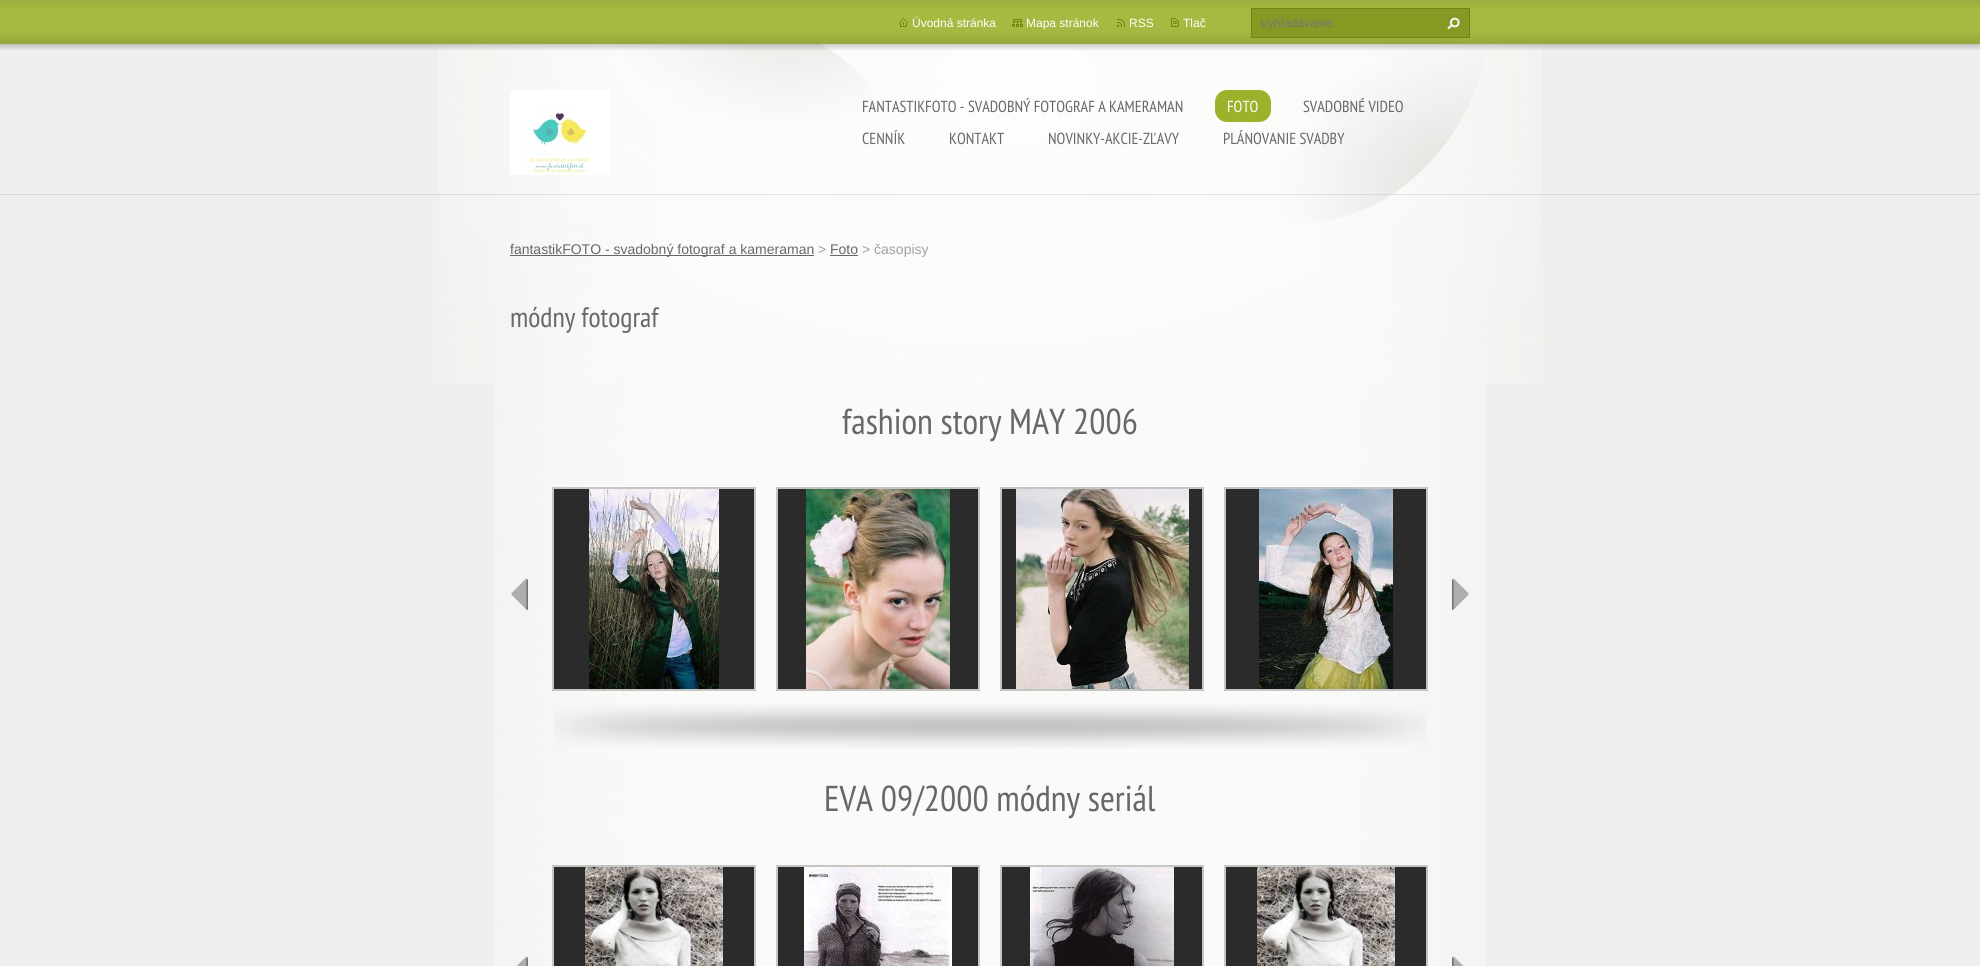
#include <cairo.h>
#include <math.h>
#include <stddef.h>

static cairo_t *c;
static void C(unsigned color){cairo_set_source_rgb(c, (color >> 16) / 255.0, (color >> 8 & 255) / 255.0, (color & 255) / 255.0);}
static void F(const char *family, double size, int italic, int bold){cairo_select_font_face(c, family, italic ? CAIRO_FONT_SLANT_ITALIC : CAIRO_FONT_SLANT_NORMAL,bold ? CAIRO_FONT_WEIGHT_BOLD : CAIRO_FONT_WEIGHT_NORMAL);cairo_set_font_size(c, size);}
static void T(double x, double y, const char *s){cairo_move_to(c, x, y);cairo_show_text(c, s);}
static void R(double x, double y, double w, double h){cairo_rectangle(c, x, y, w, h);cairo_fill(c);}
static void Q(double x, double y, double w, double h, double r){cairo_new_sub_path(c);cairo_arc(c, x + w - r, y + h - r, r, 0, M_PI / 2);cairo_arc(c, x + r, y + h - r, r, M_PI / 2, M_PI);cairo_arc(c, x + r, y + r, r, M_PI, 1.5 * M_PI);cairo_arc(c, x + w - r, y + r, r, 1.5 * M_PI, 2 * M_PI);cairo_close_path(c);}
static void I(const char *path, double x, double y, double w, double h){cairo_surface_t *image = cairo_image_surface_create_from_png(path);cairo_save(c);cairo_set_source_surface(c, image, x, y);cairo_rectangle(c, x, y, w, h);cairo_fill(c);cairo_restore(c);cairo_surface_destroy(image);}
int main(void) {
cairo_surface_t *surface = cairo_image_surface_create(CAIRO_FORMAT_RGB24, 1980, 966);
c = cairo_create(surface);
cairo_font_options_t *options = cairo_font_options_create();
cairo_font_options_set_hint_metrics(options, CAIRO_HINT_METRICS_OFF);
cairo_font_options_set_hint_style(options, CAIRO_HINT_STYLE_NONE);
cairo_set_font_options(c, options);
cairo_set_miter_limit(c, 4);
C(0xefefed);
cairo_paint(c);
I("1.png",494,384,992,582);
I("2.png",438,44,1104,340);
cairo_set_source_rgba(c,0.62,0.62,0.62,0.26);
R(0,194,1980,1);
I("3.png",0,0,1980,50);
I("4.png",899,18,9,9);
F("Liberation Sans",12,0,0);
C(0xffffff);
T(912,27,"Úvodná stránka");
I("5.png",1012,19,11,8);
T(1026,27,"Mapa stránok");
I("6.png",1117,19,8,8);
T(1129,27,"RSS");
I("7.png",1171,18,8,9);
T(1183,27,"Tlač");
I("8.png",1251,8,219,30);
C(0x757575);
T(1260,27,"Vyhľadávanie");
I("9.png",1447,17,13,13);
I("10.png",510,90,100,85);
F("PT Sans Narrow",16,0,0);
C(0x686868);
T(862,112,"FANTASTIKFOTO - SVADOBNÝ FOTOGRAF A KAMERAMAN");
C(0x9db12b);
Q(1215,90,56,32,12);
cairo_fill(c);
C(0xffffff);
T(1227,112,"FOTO");
C(0x686868);
T(1303,112,"SVADOBNÉ VIDEO");
T(862,144,"CENNÍK");
T(949,144,"KONTAKT");
T(1048,144,"NOVINKY-AKCIE-ZĽAVY");
T(1223,144,"PLÁNOVANIE SVADBY");
R(510,255,304,1);
F("Liberation Sans",14,0,0);
T(510,254,"fantastikFOTO - svadobný fotograf a kameraman");
C(0xa3a1a1);
T(818,254,">");
C(0x686868);
T(830,254,"Foto");
R(830,255,28,1);
C(0xa3a1a1);
T(862,254,"> časopisy");
F("PT Sans Narrow",28,0,0);
C(0x686868);
T(510,327,"módny fotograf");
F("PT Sans Narrow",36,0,0);
T(842,434,"fashion story MAY 2006");
I("11.png",554,704,873,44);
I("12.png",511,578,17,33);
C(0x2b2b2b);
cairo_rectangle(c,553,488,202,202);
cairo_fill_preserve(c);
C(0xc5c5c4);
cairo_stroke(c);
I("13.png",589,489,130,200);
C(0x2b2b2b);
cairo_rectangle(c,777,488,202,202);
cairo_fill_preserve(c);
C(0xc5c5c4);
cairo_stroke(c);
I("14.png",806,489,144,200);
C(0x2b2b2b);
cairo_rectangle(c,1001,488,202,202);
cairo_fill_preserve(c);
C(0xc5c5c4);
cairo_stroke(c);
I("15.png",1016,489,173,200);
C(0x2b2b2b);
cairo_rectangle(c,1225,488,202,202);
cairo_fill_preserve(c);
C(0xc5c5c4);
cairo_stroke(c);
I("16.png",1259,489,134,200);
I("17.png",1452,578,17,33);
C(0x686868);
T(824,811,"EVA 09/2000 módny seriál");
I("18.png",517,956,11,10);
C(0x2b2b2b);
cairo_rectangle(c,553,866,202,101);
cairo_fill_preserve(c);
C(0xc5c5c4);
cairo_stroke(c);
I("19.png",585,867,138,99);
C(0x2b2b2b);
cairo_rectangle(c,777,866,202,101);
cairo_fill_preserve(c);
C(0xc5c5c4);
cairo_stroke(c);
I("20.png",804,867,148,99);
C(0x2b2b2b);
cairo_rectangle(c,1001,866,202,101);
cairo_fill_preserve(c);
C(0xc5c5c4);
cairo_stroke(c);
I("21.png",1030,867,144,99);
C(0x2b2b2b);
cairo_rectangle(c,1225,866,202,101);
cairo_fill_preserve(c);
C(0xc5c5c4);
cairo_stroke(c);
I("19.png",1257,867,138,99);
I("22.png",1452,956,11,10);
cairo_surface_write_to_png(surface, "o.png");
cairo_font_options_destroy(options);
cairo_destroy(c);
cairo_surface_destroy(surface);
return 0;
}
